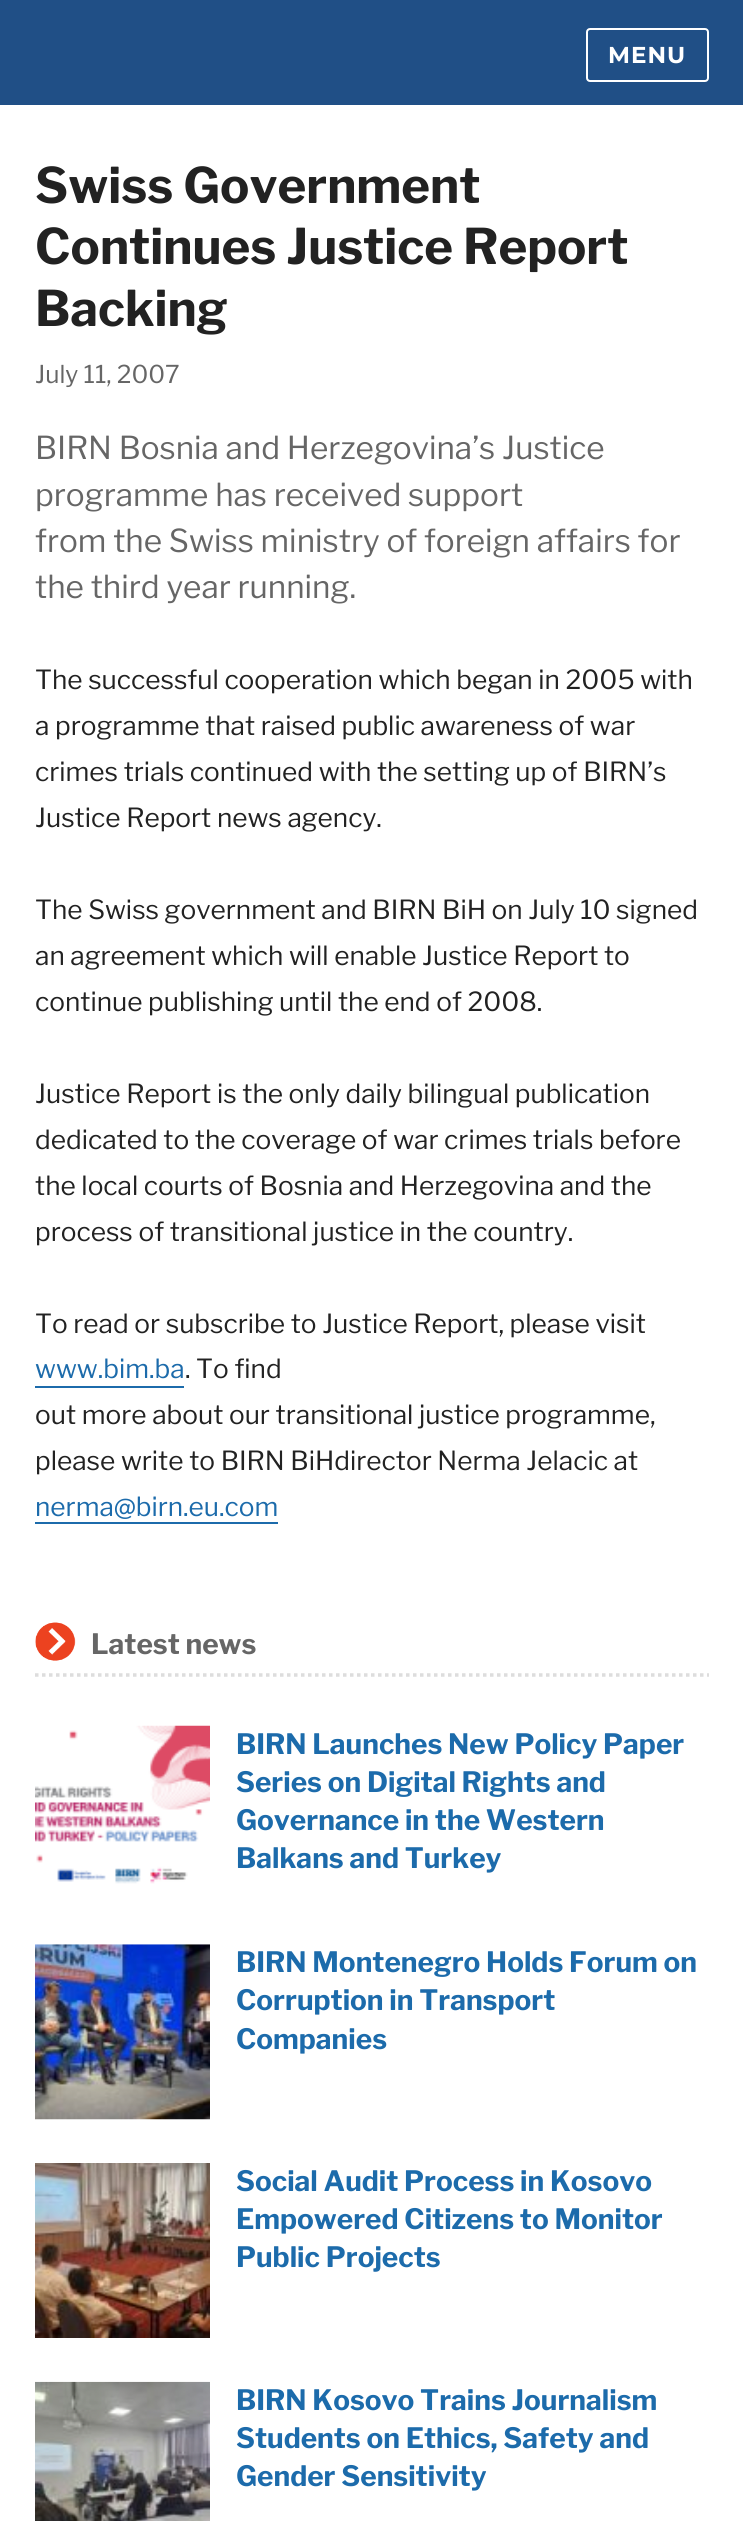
#include <cairo.h>
#include <math.h>
#include <stddef.h>

static cairo_t *c;
static void C(unsigned color){cairo_set_source_rgb(c, (color >> 16) / 255.0, (color >> 8 & 255) / 255.0, (color & 255) / 255.0);}
static void F(const char *family, double size, int italic, int bold){cairo_select_font_face(c, family, italic ? CAIRO_FONT_SLANT_ITALIC : CAIRO_FONT_SLANT_NORMAL,bold ? CAIRO_FONT_WEIGHT_BOLD : CAIRO_FONT_WEIGHT_NORMAL);cairo_set_font_size(c, size);}
static void T(double x, double y, const char *s){cairo_move_to(c, x, y);cairo_show_text(c, s);}
static void L(double x, double y, const char *s, double letter, double word){cairo_move_to(c, x, y);while (*s) {char ch[5] = {0};int n = 0;do ch[n++] = *s++; while ((*s & 0xC0) == 0x80);cairo_show_text(c, ch);cairo_rel_move_to(c, letter + word * (*ch == ' '), 0);}}
static void R(double x, double y, double w, double h){cairo_rectangle(c, x, y, w, h);cairo_fill(c);}
static void Q(double x, double y, double w, double h, double r){cairo_new_sub_path(c);cairo_arc(c, x + w - r, y + h - r, r, 0, M_PI / 2);cairo_arc(c, x + r, y + h - r, r, M_PI / 2, M_PI);cairo_arc(c, x + r, y + r, r, M_PI, 1.5 * M_PI);cairo_arc(c, x + w - r, y + r, r, 1.5 * M_PI, 2 * M_PI);cairo_close_path(c);}
static void I(const char *path, double x, double y, double w, double h){cairo_surface_t *image = cairo_image_surface_create_from_png(path);cairo_save(c);cairo_set_source_surface(c, image, x, y);cairo_rectangle(c, x, y, w, h);cairo_fill(c);cairo_restore(c);cairo_surface_destroy(image);}
int main(void) {
cairo_surface_t *surface = cairo_image_surface_create(CAIRO_FORMAT_RGB24, 743, 2521);
c = cairo_create(surface);
cairo_font_options_t *options = cairo_font_options_create();
cairo_font_options_set_hint_metrics(options, CAIRO_HINT_METRICS_OFF);
cairo_font_options_set_hint_style(options, CAIRO_HINT_STYLE_NONE);
cairo_set_font_options(c, options);
cairo_set_miter_limit(c, 4);
C(0xffffff);
cairo_paint(c);
C(0x204f86);
R(0,0,743,105);
Q(587,29,121,52,3);
C(0xffffff);
cairo_stroke(c);
F("Montserrat",23,0,1);
L(608,63,"MENU",1,0);
F("Libre Franklin",49,0,1);
C(0x222222);
T(35,203,"Swiss Government");
T(35,264,"Continues Justice Report");
T(35,326,"Backing");
F("Libre Franklin",24.5,0,0);
C(0x666666);
T(35,383,"July 11, 2007");
F("Libre Franklin",31.5,0,0);
T(35,459,"BIRN Bosnia and Herzegovina’s Justice");
T(35,506,"programme has received support");
T(35,552,"from the Swiss ministry of foreign affairs for");
T(35,598,"the third year running.");
F("Libre Franklin",26.25,0,0);
C(0x222222);
T(35,689,"The successful cooperation which began in 2005 with");
T(35,735,"a programme that raised public awareness of war");
T(35,781,"crimes trials continued with the setting up of BIRN’s");
T(35,827,"Justice Report news agency.");
T(35,919,"The Swiss government and BIRN BiH on July 10 signed");
T(35,965,"an agreement which will enable Justice Report to");
T(35,1011,"continue publishing until the end of 2008.");
T(35,1103,"Justice Report is the only daily bilingual publication");
T(35,1149,"dedicated to the coverage of war crimes trials before");
T(35,1195,"the local courts of Bosnia and Herzegovina and the");
T(35,1241,"process of transitional justice in the country.");
T(35,1333,"To read or subscribe to Justice Report, please visit");
C(0x1c6bab);
T(35,1378,"www.bim.ba");
cairo_new_path(c);
cairo_move_to(c,35,1386);
cairo_line_to(c,35,1388);
cairo_line_to(c,184,1388);
cairo_line_to(c,184,1356);
cairo_line_to(c,184,1386);
cairo_close_path(c);
cairo_fill(c);
C(0x222222);
T(185,1378,". To find");
T(35,1424,"out more about our transitional justice programme,");
T(35,1470,"please write to BIRN BiHdirector Nerma Jelacic at");
C(0x1c6bab);
T(35,1516,"nerma@birn.eu.com");
R(35,1522,243,2);
I("1.png",35,1622,41,39);
cairo_new_path(c);
cairo_move_to(c,35,1675);
cairo_line_to(c,709,1675);
C(0xdddddd);
cairo_set_line_width(c,3.5);
cairo_set_dash(c,(double[]){3.5,3.5},2,0);
cairo_stroke(c);
F("Libre Franklin",28,0,1);
C(0x666666);
T(91,1654,"Latest news");
I("2.png",35,1725,175,159);
C(0x1c6bab);
T(236,1754,"BIRN Launches New Policy Paper");
T(236,1792,"Series on Digital Rights and");
T(236,1830,"Governance in the Western");
T(236,1868,"Balkans and Turkey");
I("3.png",35,1944,175,176);
T(236,1972,"BIRN Montenegro Holds Forum on");
T(236,2010,"Corruption in Transport");
T(236,2049,"Companies");
I("4.png",35,2163,175,175);
T(236,2191,"Social Audit Process in Kosovo");
T(236,2229,"Empowered Citizens to Monitor");
T(236,2267,"Public Projects");
I("5.png",35,2381,175,140);
T(236,2410,"BIRN Kosovo Trains Journalism");
T(236,2448,"Students on Ethics, Safety and");
T(236,2486,"Gender Sensitivity");
cairo_surface_write_to_png(surface, "o.png");
cairo_font_options_destroy(options);
cairo_destroy(c);
cairo_surface_destroy(surface);
return 0;
}
